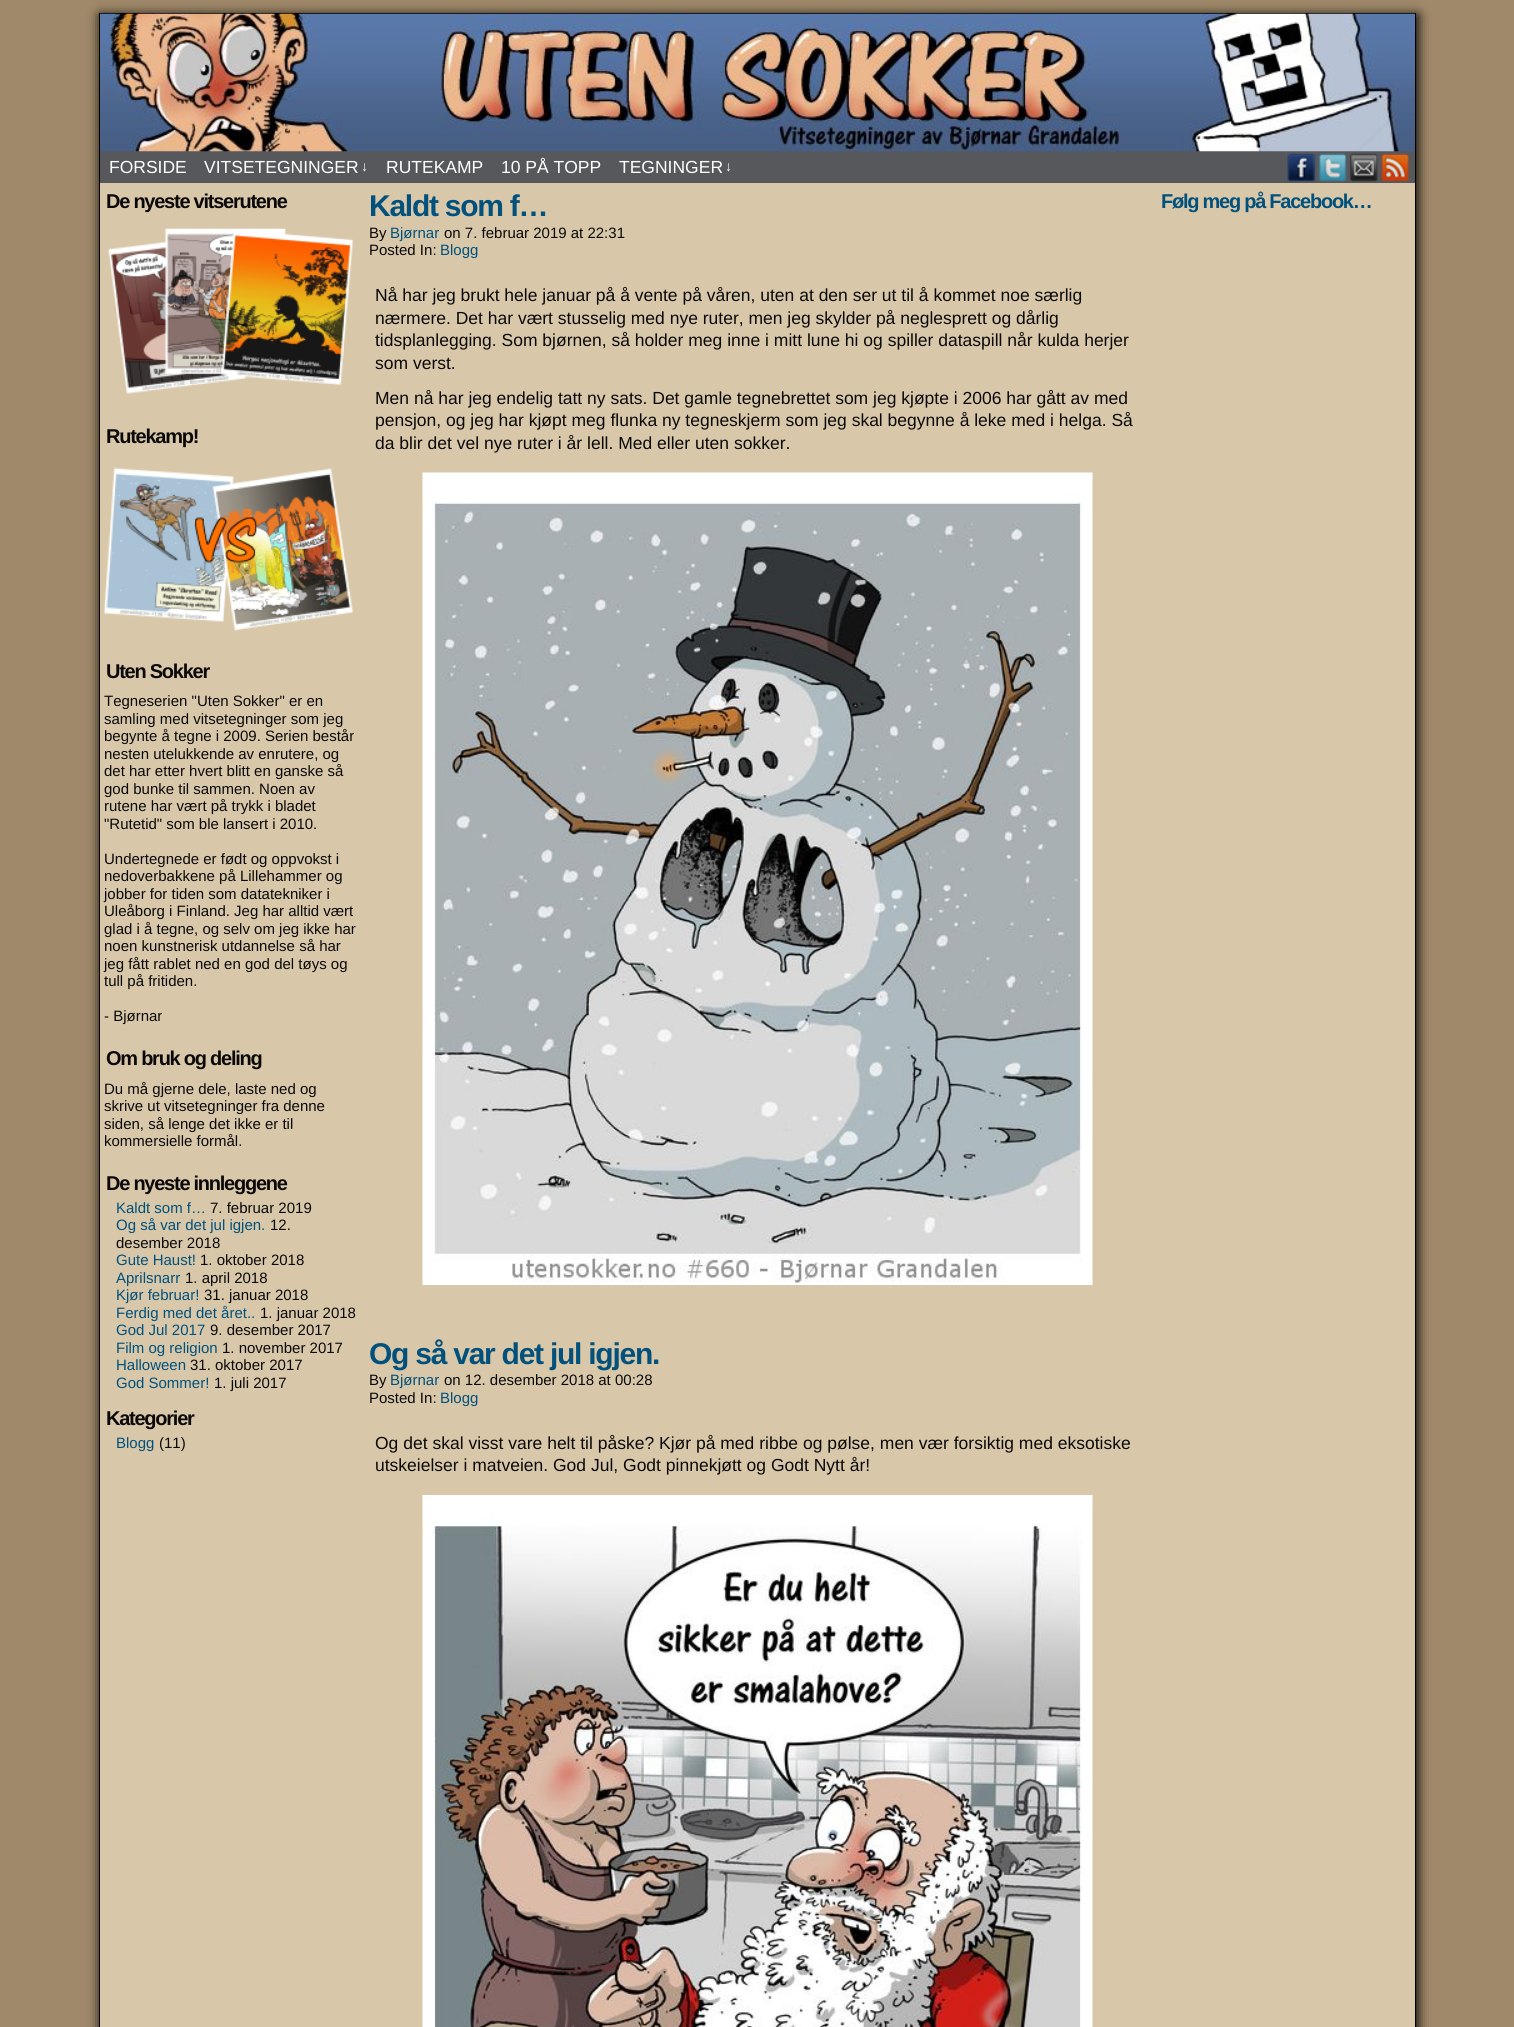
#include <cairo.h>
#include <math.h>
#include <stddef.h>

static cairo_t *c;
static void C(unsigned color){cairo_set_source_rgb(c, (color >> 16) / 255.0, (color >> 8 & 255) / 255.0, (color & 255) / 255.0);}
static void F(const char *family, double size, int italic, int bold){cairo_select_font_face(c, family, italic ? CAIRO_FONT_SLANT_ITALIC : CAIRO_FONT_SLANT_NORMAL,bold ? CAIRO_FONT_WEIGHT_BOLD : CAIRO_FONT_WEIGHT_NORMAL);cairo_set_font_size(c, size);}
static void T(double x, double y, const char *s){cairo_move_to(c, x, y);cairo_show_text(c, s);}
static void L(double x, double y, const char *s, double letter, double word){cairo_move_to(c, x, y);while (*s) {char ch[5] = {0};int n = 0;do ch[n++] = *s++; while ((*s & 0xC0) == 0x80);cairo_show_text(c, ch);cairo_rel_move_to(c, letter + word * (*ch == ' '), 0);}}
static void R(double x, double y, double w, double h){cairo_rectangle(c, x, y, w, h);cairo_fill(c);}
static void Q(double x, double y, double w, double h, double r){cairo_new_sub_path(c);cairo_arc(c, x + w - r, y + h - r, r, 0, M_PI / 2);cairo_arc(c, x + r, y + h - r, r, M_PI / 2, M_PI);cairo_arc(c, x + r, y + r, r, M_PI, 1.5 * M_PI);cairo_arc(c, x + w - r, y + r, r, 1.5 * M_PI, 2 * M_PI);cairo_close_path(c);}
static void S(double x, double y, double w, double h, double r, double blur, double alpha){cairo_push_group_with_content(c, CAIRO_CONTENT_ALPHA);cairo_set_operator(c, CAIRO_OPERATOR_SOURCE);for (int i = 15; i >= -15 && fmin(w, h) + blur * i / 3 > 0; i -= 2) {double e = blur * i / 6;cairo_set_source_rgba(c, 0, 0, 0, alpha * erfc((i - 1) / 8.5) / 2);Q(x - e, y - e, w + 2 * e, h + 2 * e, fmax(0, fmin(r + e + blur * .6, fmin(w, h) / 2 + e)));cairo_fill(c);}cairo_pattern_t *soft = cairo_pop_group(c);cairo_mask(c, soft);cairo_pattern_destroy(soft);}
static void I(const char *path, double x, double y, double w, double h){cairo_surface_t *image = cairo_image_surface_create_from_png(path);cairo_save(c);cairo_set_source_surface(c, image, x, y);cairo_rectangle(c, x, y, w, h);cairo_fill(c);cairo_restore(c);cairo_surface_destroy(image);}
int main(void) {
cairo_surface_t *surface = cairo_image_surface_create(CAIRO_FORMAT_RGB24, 1514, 2027);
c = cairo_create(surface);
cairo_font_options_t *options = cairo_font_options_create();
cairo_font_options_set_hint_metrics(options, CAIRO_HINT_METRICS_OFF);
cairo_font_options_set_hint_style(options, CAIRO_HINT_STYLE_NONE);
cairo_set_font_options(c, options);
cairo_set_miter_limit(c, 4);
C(0xa0896a);
cairo_paint(c);
C(0x000000);
S(100,15,1318,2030,0,6,1);
C(0xd8c8a9);
R(100,183,1315,1844);
cairo_rectangle(c,99.5,13.5,1316,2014);
C(0x000000);
cairo_set_line_width(c,1);
cairo_stroke(c);
C(0x57585c);
R(100,151,1315,32);
I("1.png",100,13,1315,139);
F("Liberation Sans",17.5,0,0);
C(0xffffff);
T(109,173,"FORSIDE");
T(204,173,"VITSETEGNINGER");
F("Liberation Sans",14,0,0);
T(361,171,"↓");
F("Liberation Sans",17.5,0,0);
T(386,173,"RUTEKAMP");
T(501,173,"10 PÅ TOPP");
T(619,173,"TEGNINGER");
F("Liberation Sans",14,0,0);
T(725,171,"↓");
I("2.png",1287,153,29,29);
I("3.png",1318,153,29,29);
I("4.png",1350,153,28,29);
I("5.png",1381,153,28,29);
F("Liberation Sans",20,0,1);
C(0x0a0808);
L(106,208,"De nyeste vitserutene",-1.25,0);
I("6.png",108,228,246,166);
L(106,443,"Rutekamp!",-1.25,0);
I("7.png",104,467,249,164);
L(106,678,"Uten Sokker",-1.25,0);
F("Liberation Sans",15,0,0);
T(104,706,"Tegneserien \"Uten Sokker\" er en");
T(104,724,"samling med vitsetegninger som jeg");
T(104,741,"begynte å tegne i 2009. Serien består");
T(104,759,"nesten utelukkende av enrutere, og");
T(104,776,"det har etter hvert blitt en ganske så");
T(104,794,"god bunke til sammen. Noen av");
T(104,811,"rutene har vært på trykk i bladet");
T(104,829,"\"Rutetid\" som ble lansert i 2010.");
T(104,864,"Undertegnede er født og oppvokst i");
T(104,881,"nedoverbakkene på Lillehammer og");
T(104,899,"jobber for tiden som datatekniker i");
T(104,916,"Uleåborg i Finland. Jeg har alltid vært");
T(104,934,"glad i å tegne, og selv om jeg ikke har");
T(104,951,"noen kunstnerisk utdannelse så har");
T(104,969,"jeg fått rablet ned en god del tøys og");
T(104,986,"tull på fritiden.");
T(104,1021,"- Bjørnar");
F("Liberation Sans",20,0,1);
L(106,1065,"Om bruk og deling",-1.25,0);
F("Liberation Sans",15,0,0);
T(104,1094,"Du må gjerne dele, laste ned og");
T(104,1111,"skrive ut vitsetegninger fra denne");
T(104,1129,"siden, så lenge det ikke er til");
T(104,1146,"kommersielle formål.");
F("Liberation Sans",20,0,1);
L(106,1190,"De nyeste innleggene",-1.25,0);
F("Liberation Sans",15,0,0);
C(0x02507c);
T(116,1213,"Kaldt som f…");
C(0x0a0808);
T(210,1213,"7. februar 2019");
C(0x02507c);
T(116,1230,"Og så var det jul igjen.");
C(0x0a0808);
T(270,1230,"12.");
T(116,1248,"desember 2018");
C(0x02507c);
T(116,1265,"Gute Haust!");
C(0x0a0808);
T(200,1265,"1. oktober 2018");
C(0x02507c);
T(116,1283,"Aprilsnarr");
C(0x0a0808);
T(185,1283,"1. april 2018");
C(0x02507c);
T(116,1300,"Kjør februar!");
C(0x0a0808);
T(204,1300,"31. januar 2018");
C(0x02507c);
T(116,1318,"Ferdig med det året..");
C(0x0a0808);
T(260,1318,"1. januar 2018");
C(0x02507c);
T(116,1335,"God Jul 2017");
C(0x0a0808);
T(210,1335,"9. desember 2017");
C(0x02507c);
T(116,1353,"Film og religion");
C(0x0a0808);
T(222,1353,"1. november 2017");
C(0x02507c);
T(116,1370,"Halloween");
C(0x0a0808);
T(190,1370,"31. oktober 2017");
C(0x02507c);
T(116,1388,"God Sommer!");
C(0x0a0808);
T(214,1388,"1. juli 2017");
F("Liberation Sans",20,0,1);
L(106,1425,"Kategorier",-1.25,0);
F("Liberation Sans",15,0,0);
C(0x02507c);
T(116,1448,"Blogg");
C(0x0a0808);
T(159,1448,"(11)");
F("Liberation Sans",30,0,1);
C(0x02507c);
L(369,216,"Kaldt som f…",-1.25,0);
F("Liberation Sans",15,0,0);
C(0x0a0808);
T(369,238,"By");
C(0x02507c);
T(390,238,"Bjørnar");
C(0x0a0808);
T(444,238,"on 7. februar 2019 at 22:31");
T(369,255,"Posted In:");
C(0x02507c);
T(440,255,"Blogg");
F("Liberation Sans",17.5,0,0);
C(0x0a0808);
T(375,301,"Nå har jeg brukt hele januar på å vente på våren, uten at den ser ut til å kommet noe særlig");
T(375,324,"nærmere. Det har vært stusselig med nye ruter, men jeg skylder på neglesprett og dårlig");
T(375,346,"tidsplanlegging. Som bjørnen, så holder meg inne i mitt lune hi og spiller dataspill når kulda herjer");
T(375,369,"som verst.");
T(375,404,"Men nå har jeg endelig tatt ny sats. Det gamle tegnebrettet som jeg kjøpte i 2006 har gått av med");
T(375,426,"pensjon, og jeg har kjøpt meg flunka ny tegneskjerm som jeg skal begynne å leke med i helga. Så");
T(375,449,"da blir det vel nye ruter i år lell. Med eller uten sokker.");
I("8.png",422,472,671,813);
F("Liberation Sans",30,0,1);
C(0x02507c);
L(369,1364,"Og så var det jul igjen.",-1.25,0);
F("Liberation Sans",15,0,0);
C(0x0a0808);
T(369,1385,"By");
C(0x02507c);
T(390,1385,"Bjørnar");
C(0x0a0808);
T(444,1385,"on 12. desember 2018 at 00:28");
T(369,1403,"Posted In:");
C(0x02507c);
T(440,1403,"Blogg");
F("Liberation Sans",17.5,0,0);
C(0x0a0808);
T(375,1449,"Og det skal visst vare helt til påske? Kjør på med ribbe og pølse, men vær forsiktig med eksotiske");
T(375,1471,"utskeielser i matveien. God Jul, Godt pinnekjøtt og Godt Nytt år!");
I("9.png",422,1495,671,532);
F("Liberation Sans",20,0,1);
C(0x02507c);
L(1161,208,"Følg meg på Facebook…",-1.25,0);
cairo_surface_write_to_png(surface, "o.png");
cairo_font_options_destroy(options);
cairo_destroy(c);
cairo_surface_destroy(surface);
return 0;
}
